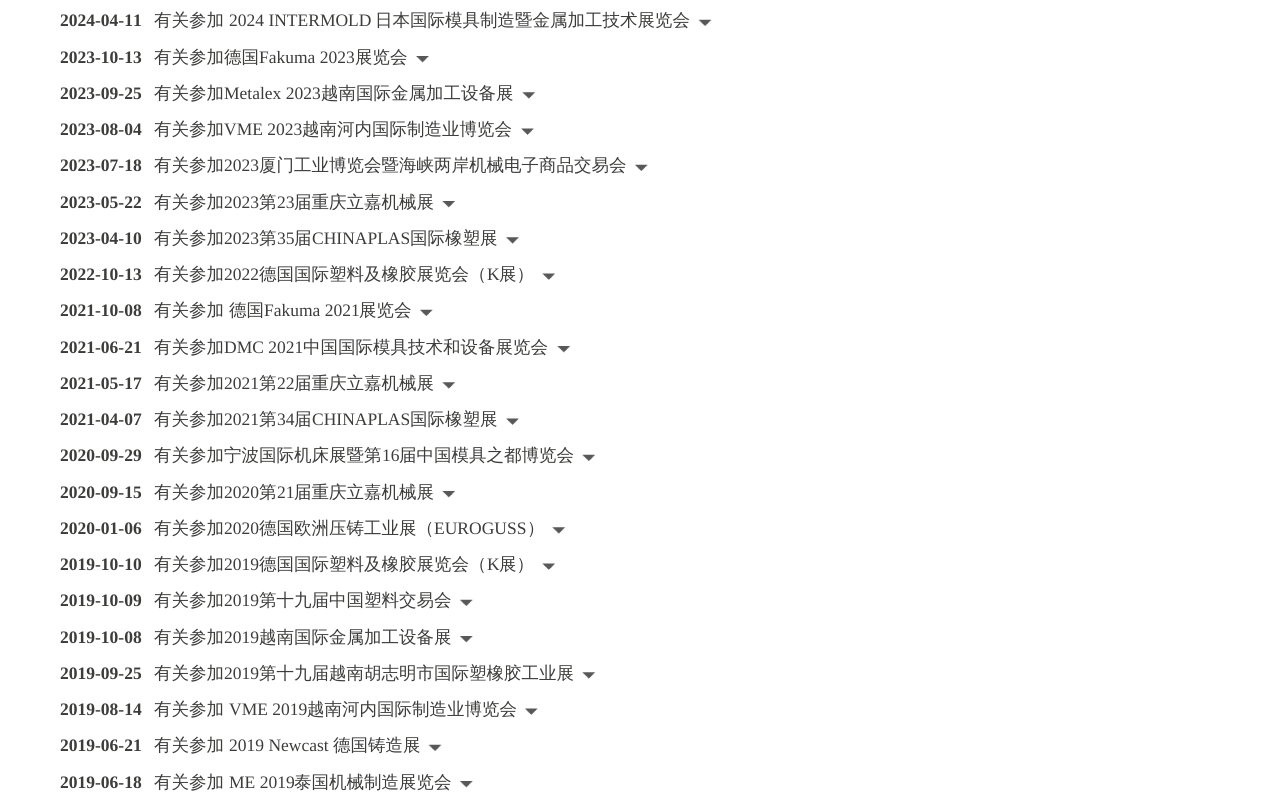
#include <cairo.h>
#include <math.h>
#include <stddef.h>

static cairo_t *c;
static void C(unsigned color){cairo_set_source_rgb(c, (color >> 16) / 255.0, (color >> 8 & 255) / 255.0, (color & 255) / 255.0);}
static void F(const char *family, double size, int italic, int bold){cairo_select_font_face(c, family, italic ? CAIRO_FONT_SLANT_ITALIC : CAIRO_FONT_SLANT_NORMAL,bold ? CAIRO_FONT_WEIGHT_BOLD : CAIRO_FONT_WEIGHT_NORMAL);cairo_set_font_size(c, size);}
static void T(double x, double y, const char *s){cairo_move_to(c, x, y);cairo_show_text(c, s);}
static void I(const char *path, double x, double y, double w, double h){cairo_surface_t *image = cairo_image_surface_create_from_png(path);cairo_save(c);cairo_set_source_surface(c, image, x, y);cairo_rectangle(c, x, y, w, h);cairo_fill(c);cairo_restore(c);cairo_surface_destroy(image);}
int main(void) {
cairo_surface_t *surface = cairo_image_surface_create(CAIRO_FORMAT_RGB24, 1276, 808);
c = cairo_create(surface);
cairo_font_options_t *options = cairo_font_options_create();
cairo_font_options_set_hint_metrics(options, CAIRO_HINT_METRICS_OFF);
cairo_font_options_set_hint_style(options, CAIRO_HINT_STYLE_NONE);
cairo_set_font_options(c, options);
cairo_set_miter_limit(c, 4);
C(0xffffff);
cairo_paint(c);
F("Liberation Serif",17.5,0,1);
C(0x3c3c3b);
T(60,26,"2024-04-11");
F("WenQuanYi Zen Hei Medium",17.5,0,0);
T(154,26,"有关参加");
F("Liberation Serif",17.5,0,0);
T(229,26,"2024 INTERMOLD");
F("WenQuanYi Zen Hei Medium",17.5,0,0);
T(375,26,"日本国际模具制造暨金属加工技术展览会");
I("1.png",698,19,14,7);
F("Liberation Serif",17.5,0,1);
T(60,63,"2023-10-13");
F("WenQuanYi Zen Hei Medium",17.5,0,0);
T(154,63,"有关参加德国");
F("Liberation Serif",17.5,0,0);
T(259,63,"Fakuma 2023");
F("WenQuanYi Zen Hei Medium",17.5,0,0);
T(355,63,"展览会");
I("2.png",416,56,13,7);
F("Liberation Serif",17.5,0,1);
T(60,99,"2023-09-25");
F("WenQuanYi Zen Hei Medium",17.5,0,0);
T(154,99,"有关参加");
F("Liberation Serif",17.5,0,0);
T(224,99,"Metalex 2023");
F("WenQuanYi Zen Hei Medium",17.5,0,0);
T(321,99,"越南国际金属加工设备展");
I("3.png",522,92,13,7);
F("Liberation Serif",17.5,0,1);
T(60,135,"2023-08-04");
F("WenQuanYi Zen Hei Medium",17.5,0,0);
T(154,135,"有关参加");
F("Liberation Serif",17.5,0,0);
T(224,135,"VME 2023");
F("WenQuanYi Zen Hei Medium",17.5,0,0);
T(302,135,"越南河内国际制造业博览会");
I("4.png",521,128,13,7);
F("Liberation Serif",17.5,0,1);
T(60,171,"2023-07-18");
F("WenQuanYi Zen Hei Medium",17.5,0,0);
T(154,171,"有关参加");
F("Liberation Serif",17.5,0,0);
T(224,171,"2023");
F("WenQuanYi Zen Hei Medium",17.5,0,0);
T(259,171,"厦门工业博览会暨海峡两岸机械电子商品交易会");
I("5.png",635,164,13,7);
F("Liberation Serif",17.5,0,1);
T(60,208,"2023-05-22");
F("WenQuanYi Zen Hei Medium",17.5,0,0);
T(154,208,"有关参加");
F("Liberation Serif",17.5,0,0);
T(224,208,"2023");
F("WenQuanYi Zen Hei Medium",17.5,0,0);
T(259,208,"第");
F("Liberation Serif",17.5,0,0);
T(277,208,"23");
F("WenQuanYi Zen Hei Medium",17.5,0,0);
T(294,208,"届重庆立嘉机械展");
I("6.png",442,201,13,7);
F("Liberation Serif",17.5,0,1);
T(60,244,"2023-04-10");
F("WenQuanYi Zen Hei Medium",17.5,0,0);
T(154,244,"有关参加");
F("Liberation Serif",17.5,0,0);
T(224,244,"2023");
F("WenQuanYi Zen Hei Medium",17.5,0,0);
T(259,244,"第");
F("Liberation Serif",17.5,0,0);
T(277,244,"35");
F("WenQuanYi Zen Hei Medium",17.5,0,0);
T(294,244,"届");
F("Liberation Serif",17.5,0,0);
T(312,244,"CHINAPLAS");
F("WenQuanYi Zen Hei Medium",17.5,0,0);
T(410,244,"国际橡塑展");
I("7.png",506,237,13,7);
F("Liberation Serif",17.5,0,1);
T(60,280,"2022-10-13");
F("WenQuanYi Zen Hei Medium",17.5,0,0);
T(154,280,"有关参加");
F("Liberation Serif",17.5,0,0);
T(224,280,"2022");
F("WenQuanYi Zen Hei Medium",17.5,0,0);
T(259,280,"德国国际塑料及橡胶展览会（");
F("Liberation Serif",17.5,0,0);
T(487,280,"K");
F("WenQuanYi Zen Hei Medium",17.5,0,0);
T(499,280,"展）");
I("8.png",542,273,13,7);
F("Liberation Serif",17.5,0,1);
T(60,316,"2021-10-08");
F("WenQuanYi Zen Hei Medium",17.5,0,0);
T(154,316,"有关参加");
T(229,316,"德国");
F("Liberation Serif",17.5,0,0);
T(264,316,"Fakuma 2021");
F("WenQuanYi Zen Hei Medium",17.5,0,0);
T(359,316,"展览会");
I("9.png",420,309,13,7);
F("Liberation Serif",17.5,0,1);
T(60,353,"2021-06-21");
F("WenQuanYi Zen Hei Medium",17.5,0,0);
T(154,353,"有关参加");
F("Liberation Serif",17.5,0,0);
T(224,353,"DMC 2021");
F("WenQuanYi Zen Hei Medium",17.5,0,0);
T(303,353,"中国国际模具技术和设备展览会");
I("10.png",557,346,13,7);
F("Liberation Serif",17.5,0,1);
T(60,389,"2021-05-17");
F("WenQuanYi Zen Hei Medium",17.5,0,0);
T(154,389,"有关参加");
F("Liberation Serif",17.5,0,0);
T(224,389,"2021");
F("WenQuanYi Zen Hei Medium",17.5,0,0);
T(259,389,"第");
F("Liberation Serif",17.5,0,0);
T(277,389,"22");
F("WenQuanYi Zen Hei Medium",17.5,0,0);
T(294,389,"届重庆立嘉机械展");
I("11.png",442,382,13,7);
F("Liberation Serif",17.5,0,1);
T(60,425,"2021-04-07");
F("WenQuanYi Zen Hei Medium",17.5,0,0);
T(154,425,"有关参加");
F("Liberation Serif",17.5,0,0);
T(224,425,"2021");
F("WenQuanYi Zen Hei Medium",17.5,0,0);
T(259,425,"第");
F("Liberation Serif",17.5,0,0);
T(277,425,"34");
F("WenQuanYi Zen Hei Medium",17.5,0,0);
T(294,425,"届");
F("Liberation Serif",17.5,0,0);
T(312,425,"CHINAPLAS");
F("WenQuanYi Zen Hei Medium",17.5,0,0);
T(410,425,"国际橡塑展");
I("12.png",506,418,13,7);
F("Liberation Serif",17.5,0,1);
T(60,461,"2020-09-29");
F("WenQuanYi Zen Hei Medium",17.5,0,0);
T(154,461,"有关参加宁波国际机床展暨第");
F("Liberation Serif",17.5,0,0);
T(382,461,"16");
F("WenQuanYi Zen Hei Medium",17.5,0,0);
T(399,461,"届中国模具之都博览会");
I("13.png",582,454,13,7);
F("Liberation Serif",17.5,0,1);
T(60,498,"2020-09-15");
F("WenQuanYi Zen Hei Medium",17.5,0,0);
T(154,498,"有关参加");
F("Liberation Serif",17.5,0,0);
T(224,498,"2020");
F("WenQuanYi Zen Hei Medium",17.5,0,0);
T(259,498,"第");
F("Liberation Serif",17.5,0,0);
T(277,498,"21");
F("WenQuanYi Zen Hei Medium",17.5,0,0);
T(294,498,"届重庆立嘉机械展");
I("6.png",442,491,13,7);
F("Liberation Serif",17.5,0,1);
T(60,534,"2020-01-06");
F("WenQuanYi Zen Hei Medium",17.5,0,0);
T(154,534,"有关参加");
F("Liberation Serif",17.5,0,0);
T(224,534,"2020");
F("WenQuanYi Zen Hei Medium",17.5,0,0);
T(259,534,"德国欧洲压铸工业展（");
F("Liberation Serif",17.5,0,0);
T(434,534,"EUROGUSS");
F("WenQuanYi Zen Hei Medium",17.5,0,0);
T(527,534,"）");
I("11.png",552,527,13,7);
F("Liberation Serif",17.5,0,1);
T(60,570,"2019-10-10");
F("WenQuanYi Zen Hei Medium",17.5,0,0);
T(154,570,"有关参加");
F("Liberation Serif",17.5,0,0);
T(224,570,"2019");
F("WenQuanYi Zen Hei Medium",17.5,0,0);
T(259,570,"德国国际塑料及橡胶展览会（");
F("Liberation Serif",17.5,0,0);
T(487,570,"K");
F("WenQuanYi Zen Hei Medium",17.5,0,0);
T(499,570,"展）");
I("8.png",542,563,13,7);
F("Liberation Serif",17.5,0,1);
T(60,606,"2019-10-09");
F("WenQuanYi Zen Hei Medium",17.5,0,0);
T(154,606,"有关参加");
F("Liberation Serif",17.5,0,0);
T(224,606,"2019");
F("WenQuanYi Zen Hei Medium",17.5,0,0);
T(259,606,"第十九届中国塑料交易会");
I("9.png",460,599,13,7);
F("Liberation Serif",17.5,0,1);
T(60,643,"2019-10-08");
F("WenQuanYi Zen Hei Medium",17.5,0,0);
T(154,643,"有关参加");
F("Liberation Serif",17.5,0,0);
T(224,643,"2019");
F("WenQuanYi Zen Hei Medium",17.5,0,0);
T(259,643,"越南国际金属加工设备展");
I("14.png",460,636,13,7);
F("Liberation Serif",17.5,0,1);
T(60,679,"2019-09-25");
F("WenQuanYi Zen Hei Medium",17.5,0,0);
T(154,679,"有关参加");
F("Liberation Serif",17.5,0,0);
T(224,679,"2019");
F("WenQuanYi Zen Hei Medium",17.5,0,0);
T(259,679,"第十九届越南胡志明市国际塑橡胶工业展");
I("3.png",582,672,13,7);
F("Liberation Serif",17.5,0,1);
T(60,715,"2019-08-14");
F("WenQuanYi Zen Hei Medium",17.5,0,0);
T(154,715,"有关参加");
F("Liberation Serif",17.5,0,0);
T(229,715,"VME 2019");
F("WenQuanYi Zen Hei Medium",17.5,0,0);
T(307,715,"越南河内国际制造业博览会");
I("15.png",525,708,13,7);
F("Liberation Serif",17.5,0,1);
T(60,751,"2019-06-21");
F("WenQuanYi Zen Hei Medium",17.5,0,0);
T(154,751,"有关参加");
F("Liberation Serif",17.5,0,0);
T(229,751,"2019 Newcast");
F("WenQuanYi Zen Hei Medium",17.5,0,0);
T(333,751,"德国铸造展");
I("16.png",428,744,14,7);
F("Liberation Serif",17.5,0,1);
T(60,788,"2019-06-18");
F("WenQuanYi Zen Hei Medium",17.5,0,0);
T(154,788,"有关参加");
F("Liberation Serif",17.5,0,0);
T(229,788,"ME 2019");
F("WenQuanYi Zen Hei Medium",17.5,0,0);
T(294,788,"泰国机械制造展览会");
I("14.png",460,781,13,7);
cairo_surface_write_to_png(surface, "o.png");
cairo_font_options_destroy(options);
cairo_destroy(c);
cairo_surface_destroy(surface);
return 0;
}
